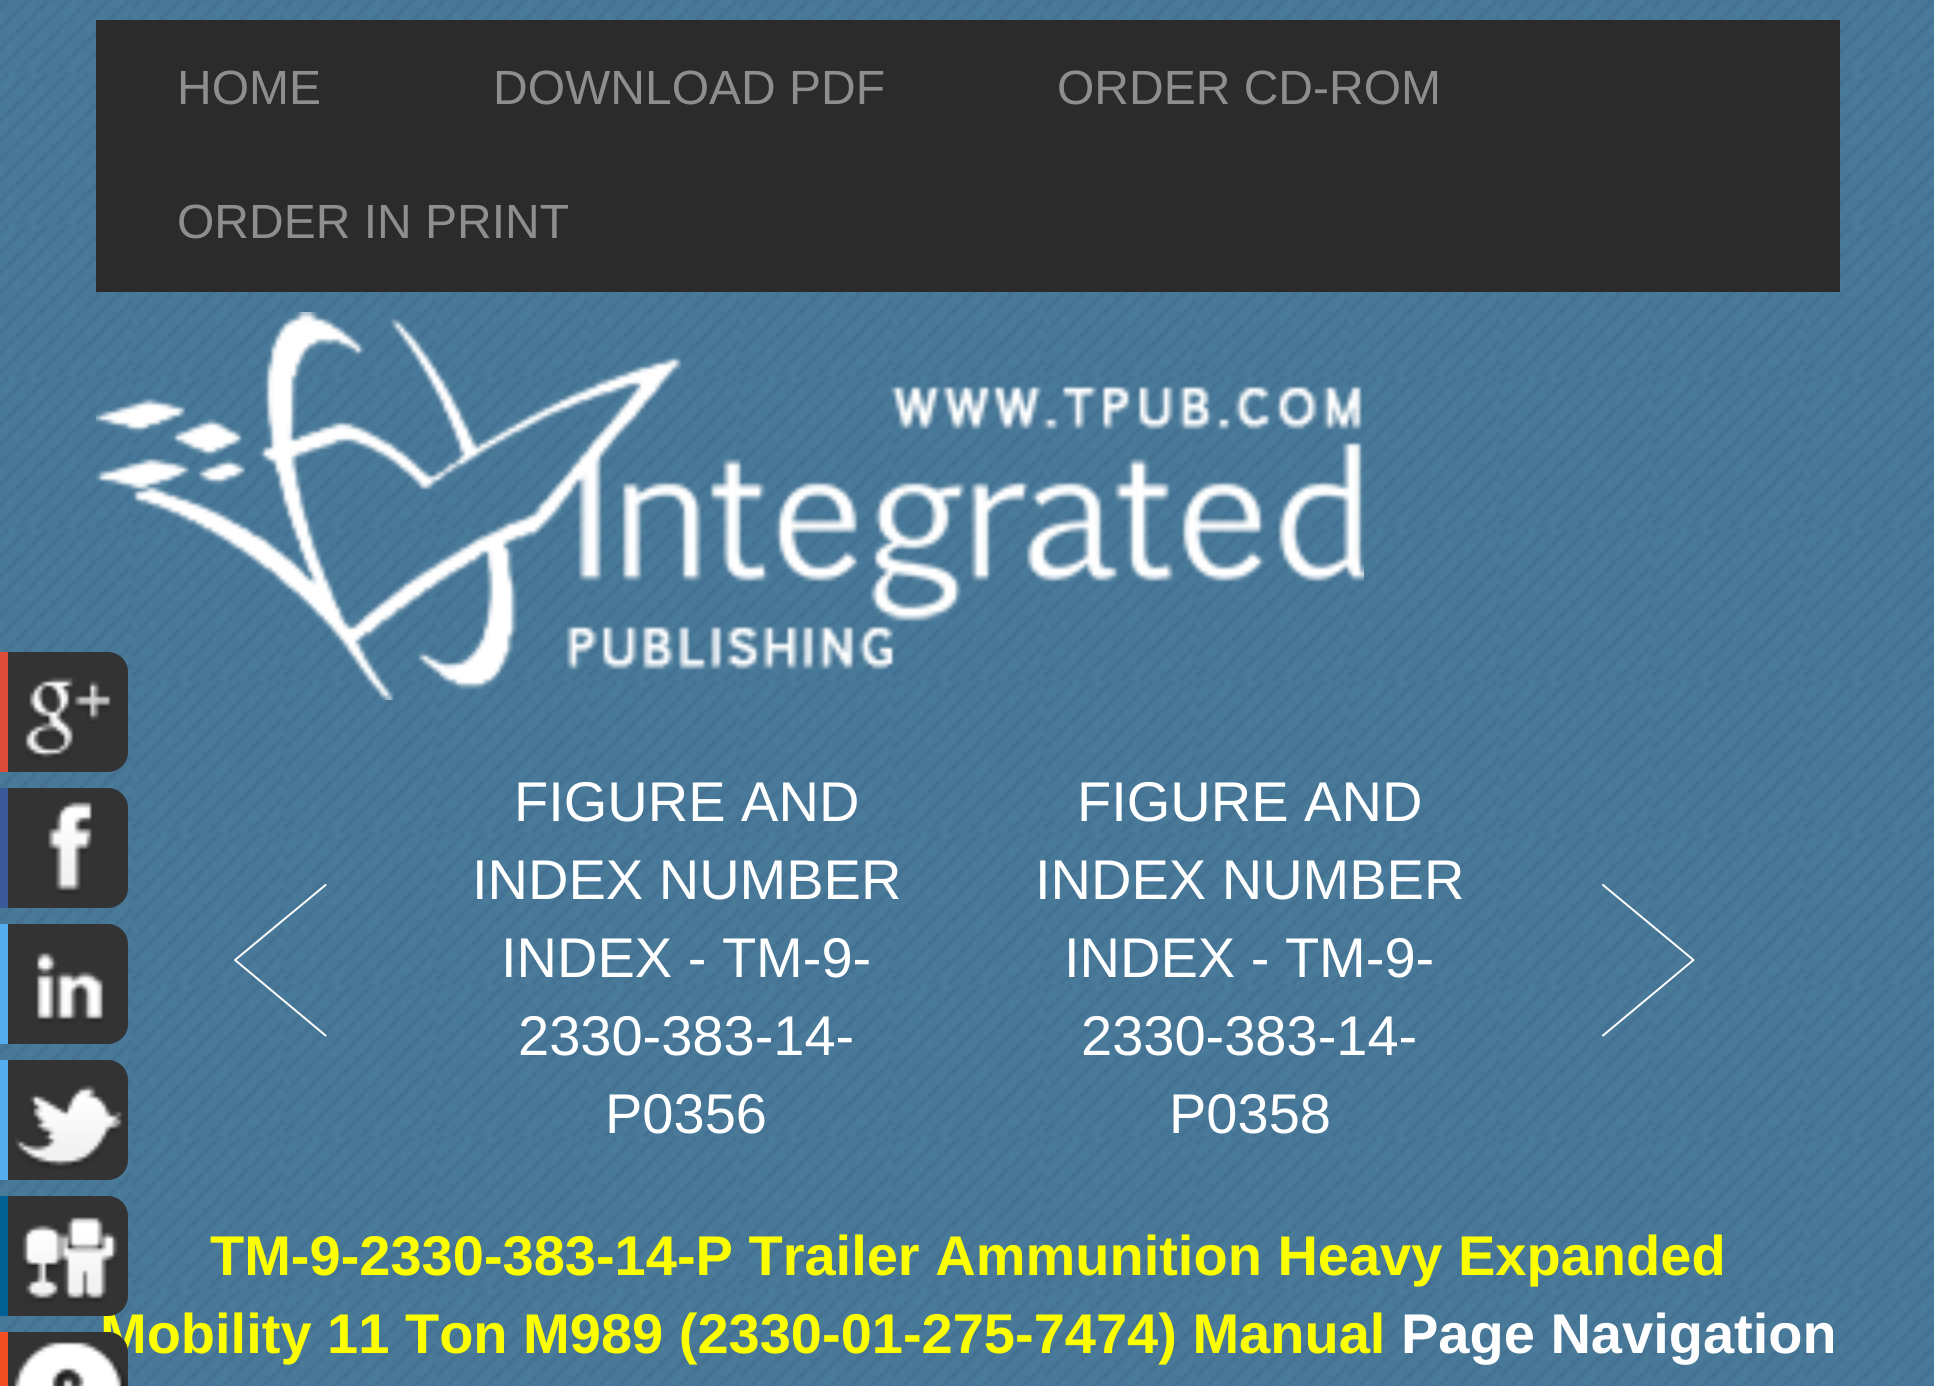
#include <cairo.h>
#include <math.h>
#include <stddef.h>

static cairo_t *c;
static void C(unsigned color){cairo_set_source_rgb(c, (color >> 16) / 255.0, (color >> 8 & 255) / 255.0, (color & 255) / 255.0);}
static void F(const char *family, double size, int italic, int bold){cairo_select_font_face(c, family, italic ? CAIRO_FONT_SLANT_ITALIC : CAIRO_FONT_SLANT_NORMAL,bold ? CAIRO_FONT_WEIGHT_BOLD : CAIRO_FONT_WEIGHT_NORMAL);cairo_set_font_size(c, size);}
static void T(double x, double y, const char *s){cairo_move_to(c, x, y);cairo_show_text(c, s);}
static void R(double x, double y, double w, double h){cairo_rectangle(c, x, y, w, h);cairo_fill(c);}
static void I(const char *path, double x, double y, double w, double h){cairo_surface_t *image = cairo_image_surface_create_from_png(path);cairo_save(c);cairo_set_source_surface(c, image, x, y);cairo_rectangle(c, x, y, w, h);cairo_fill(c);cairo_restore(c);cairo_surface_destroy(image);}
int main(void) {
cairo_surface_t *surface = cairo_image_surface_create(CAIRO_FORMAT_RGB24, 1934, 1386);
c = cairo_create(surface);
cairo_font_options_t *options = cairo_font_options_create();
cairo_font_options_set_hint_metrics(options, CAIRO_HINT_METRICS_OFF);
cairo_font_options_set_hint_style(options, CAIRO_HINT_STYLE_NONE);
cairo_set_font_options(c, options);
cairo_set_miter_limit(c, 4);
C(0xffffff);
cairo_paint(c);
I("7.png",0,0,1934,1386);
I("8.png",96,312,1268,388);
C(0xdd4b39);
cairo_new_path(c);
cairo_move_to(c,-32,652);
cairo_line_to(c,96,652);
cairo_curve_to(c,113.5,652,128,666.5,128,684);
cairo_line_to(c,128,740);
cairo_curve_to(c,128,757.5,113.5,772,96,772);
cairo_line_to(c,-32,772);
cairo_close_path(c);
cairo_fill(c);
C(0x333333);
cairo_new_path(c);
cairo_move_to(c,8,652);
cairo_line_to(c,108,652);
cairo_curve_to(c,119,652,128,661,128,672);
cairo_line_to(c,128,752);
cairo_curve_to(c,128,763,119,772,108,772);
cairo_line_to(c,8,772);
cairo_close_path(c);
cairo_fill(c);
I("1.png",25,677,86,83);
C(0x3b5998);
cairo_new_path(c);
cairo_move_to(c,-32,788);
cairo_line_to(c,96,788);
cairo_curve_to(c,113.5,788,128,802.5,128,820);
cairo_line_to(c,128,876);
cairo_curve_to(c,128,893.5,113.5,908,96,908);
cairo_line_to(c,-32,908);
cairo_close_path(c);
cairo_fill(c);
C(0x333333);
cairo_new_path(c);
cairo_move_to(c,8,788);
cairo_line_to(c,108,788);
cairo_curve_to(c,119,788,128,797,128,808);
cairo_line_to(c,128,888);
cairo_curve_to(c,128,899,119,908,108,908);
cairo_line_to(c,8,908);
cairo_close_path(c);
cairo_fill(c);
I("2.png",48,801,45,93);
C(0x55acee);
cairo_new_path(c);
cairo_move_to(c,-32,924);
cairo_line_to(c,96,924);
cairo_curve_to(c,113.5,924,128,938.5,128,956);
cairo_line_to(c,128,1012);
cairo_curve_to(c,128,1029.5,113.5,1044,96,1044);
cairo_line_to(c,-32,1044);
cairo_close_path(c);
cairo_fill(c);
C(0x333333);
cairo_new_path(c);
cairo_move_to(c,8,924);
cairo_line_to(c,108,924);
cairo_curve_to(c,119,924,128,933,128,944);
cairo_line_to(c,128,1024);
cairo_curve_to(c,128,1035,119,1044,108,1044);
cairo_line_to(c,8,1044);
cairo_close_path(c);
cairo_fill(c);
I("3.png",36,952,68,71);
C(0x55acee);
cairo_new_path(c);
cairo_move_to(c,-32,1060);
cairo_line_to(c,96,1060);
cairo_curve_to(c,113.5,1060,128,1074.5,128,1092);
cairo_line_to(c,128,1148);
cairo_curve_to(c,128,1165.5,113.5,1180,96,1180);
cairo_line_to(c,-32,1180);
cairo_close_path(c);
cairo_fill(c);
C(0x333333);
cairo_new_path(c);
cairo_move_to(c,8,1060);
cairo_line_to(c,108,1060);
cairo_curve_to(c,119,1060,128,1069,128,1080);
cairo_line_to(c,128,1160);
cairo_curve_to(c,128,1171,119,1180,108,1180);
cairo_line_to(c,8,1180);
cairo_close_path(c);
cairo_fill(c);
I("4.png",15,1085,108,84);
F("Liberation Sans",56,0,1);
C(0xfcff00);
T(100,1353,"Mobility 11 Ton M989 (2330-01-275-7474) Manual");
C(0x005f93);
cairo_new_path(c);
cairo_move_to(c,-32,1196);
cairo_line_to(c,96,1196);
cairo_curve_to(c,113.5,1196,128,1210.5,128,1228);
cairo_line_to(c,128,1284);
cairo_curve_to(c,128,1301.5,113.5,1316,96,1316);
cairo_line_to(c,-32,1316);
cairo_close_path(c);
cairo_fill(c);
C(0x333333);
cairo_new_path(c);
cairo_move_to(c,8,1196);
cairo_line_to(c,108,1196);
cairo_curve_to(c,119,1196,128,1205,128,1216);
cairo_line_to(c,128,1296);
cairo_curve_to(c,128,1307,119,1316,108,1316);
cairo_line_to(c,8,1316);
cairo_close_path(c);
cairo_fill(c);
I("5.png",22,1217,96,86);
C(0xf14e23);
cairo_new_path(c);
cairo_move_to(c,-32,1332);
cairo_line_to(c,96,1332);
cairo_curve_to(c,113.5,1332,128,1346.5,128,1364);
cairo_line_to(c,128,1386);
cairo_curve_to(c,128,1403.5,113.5,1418,96,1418);
cairo_line_to(c,-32,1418);
cairo_close_path(c);
cairo_fill(c);
C(0x333333);
cairo_new_path(c);
cairo_move_to(c,8,1332);
cairo_line_to(c,108,1332);
cairo_curve_to(c,119,1332,128,1341,128,1352);
cairo_line_to(c,128,1386);
cairo_curve_to(c,128,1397,119,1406,108,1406);
cairo_line_to(c,8,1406);
cairo_close_path(c);
cairo_fill(c);
I("6.png",14,1342,114,44);
C(0x2b2b2b);
R(96,20,1744,272);
F("Liberation Sans",48,0,0);
C(0x8e8e8e);
T(177,104,"HOME");
T(493,104,"DOWNLOAD PDF");
T(1057,104,"ORDER CD-ROM");
T(177,238,"ORDER IN PRINT");
cairo_new_path(c);
cairo_move_to(c,325.5,1035.5);
cairo_line_to(c,235,960);
cairo_line_to(c,325.5,885);
C(0xffffff);
cairo_set_line_cap(c,CAIRO_LINE_CAP_ROUND);
cairo_set_line_join(c,CAIRO_LINE_JOIN_ROUND);
cairo_stroke(c);
F("Liberation Sans",56,0,0);
T(514,821,"FIGURE AND");
T(472,899,"INDEX NUMBER");
T(501,977,"INDEX - TM-9-");
T(518,1055,"2330-383-14-");
T(605,1133,"P0356");
T(1077,821,"FIGURE AND");
T(1035,899,"INDEX NUMBER");
T(1064,977,"INDEX - TM-9-");
T(1081,1055,"2330-383-14-");
T(1169,1133,"P0358");
cairo_new_path(c);
cairo_move_to(c,1603,885);
cairo_line_to(c,1693.5,960);
cairo_line_to(c,1603,1035.5);
cairo_stroke(c);
F("Liberation Sans",56,0,1);
C(0xfcff00);
T(210,1275,"TM-9-2330-383-14-P Trailer Ammunition Heavy Expanded");
C(0xffffff);
T(1401,1353,"Page Navigation");
cairo_surface_write_to_png(surface, "o.png");
cairo_font_options_destroy(options);
cairo_destroy(c);
cairo_surface_destroy(surface);
return 0;
}
